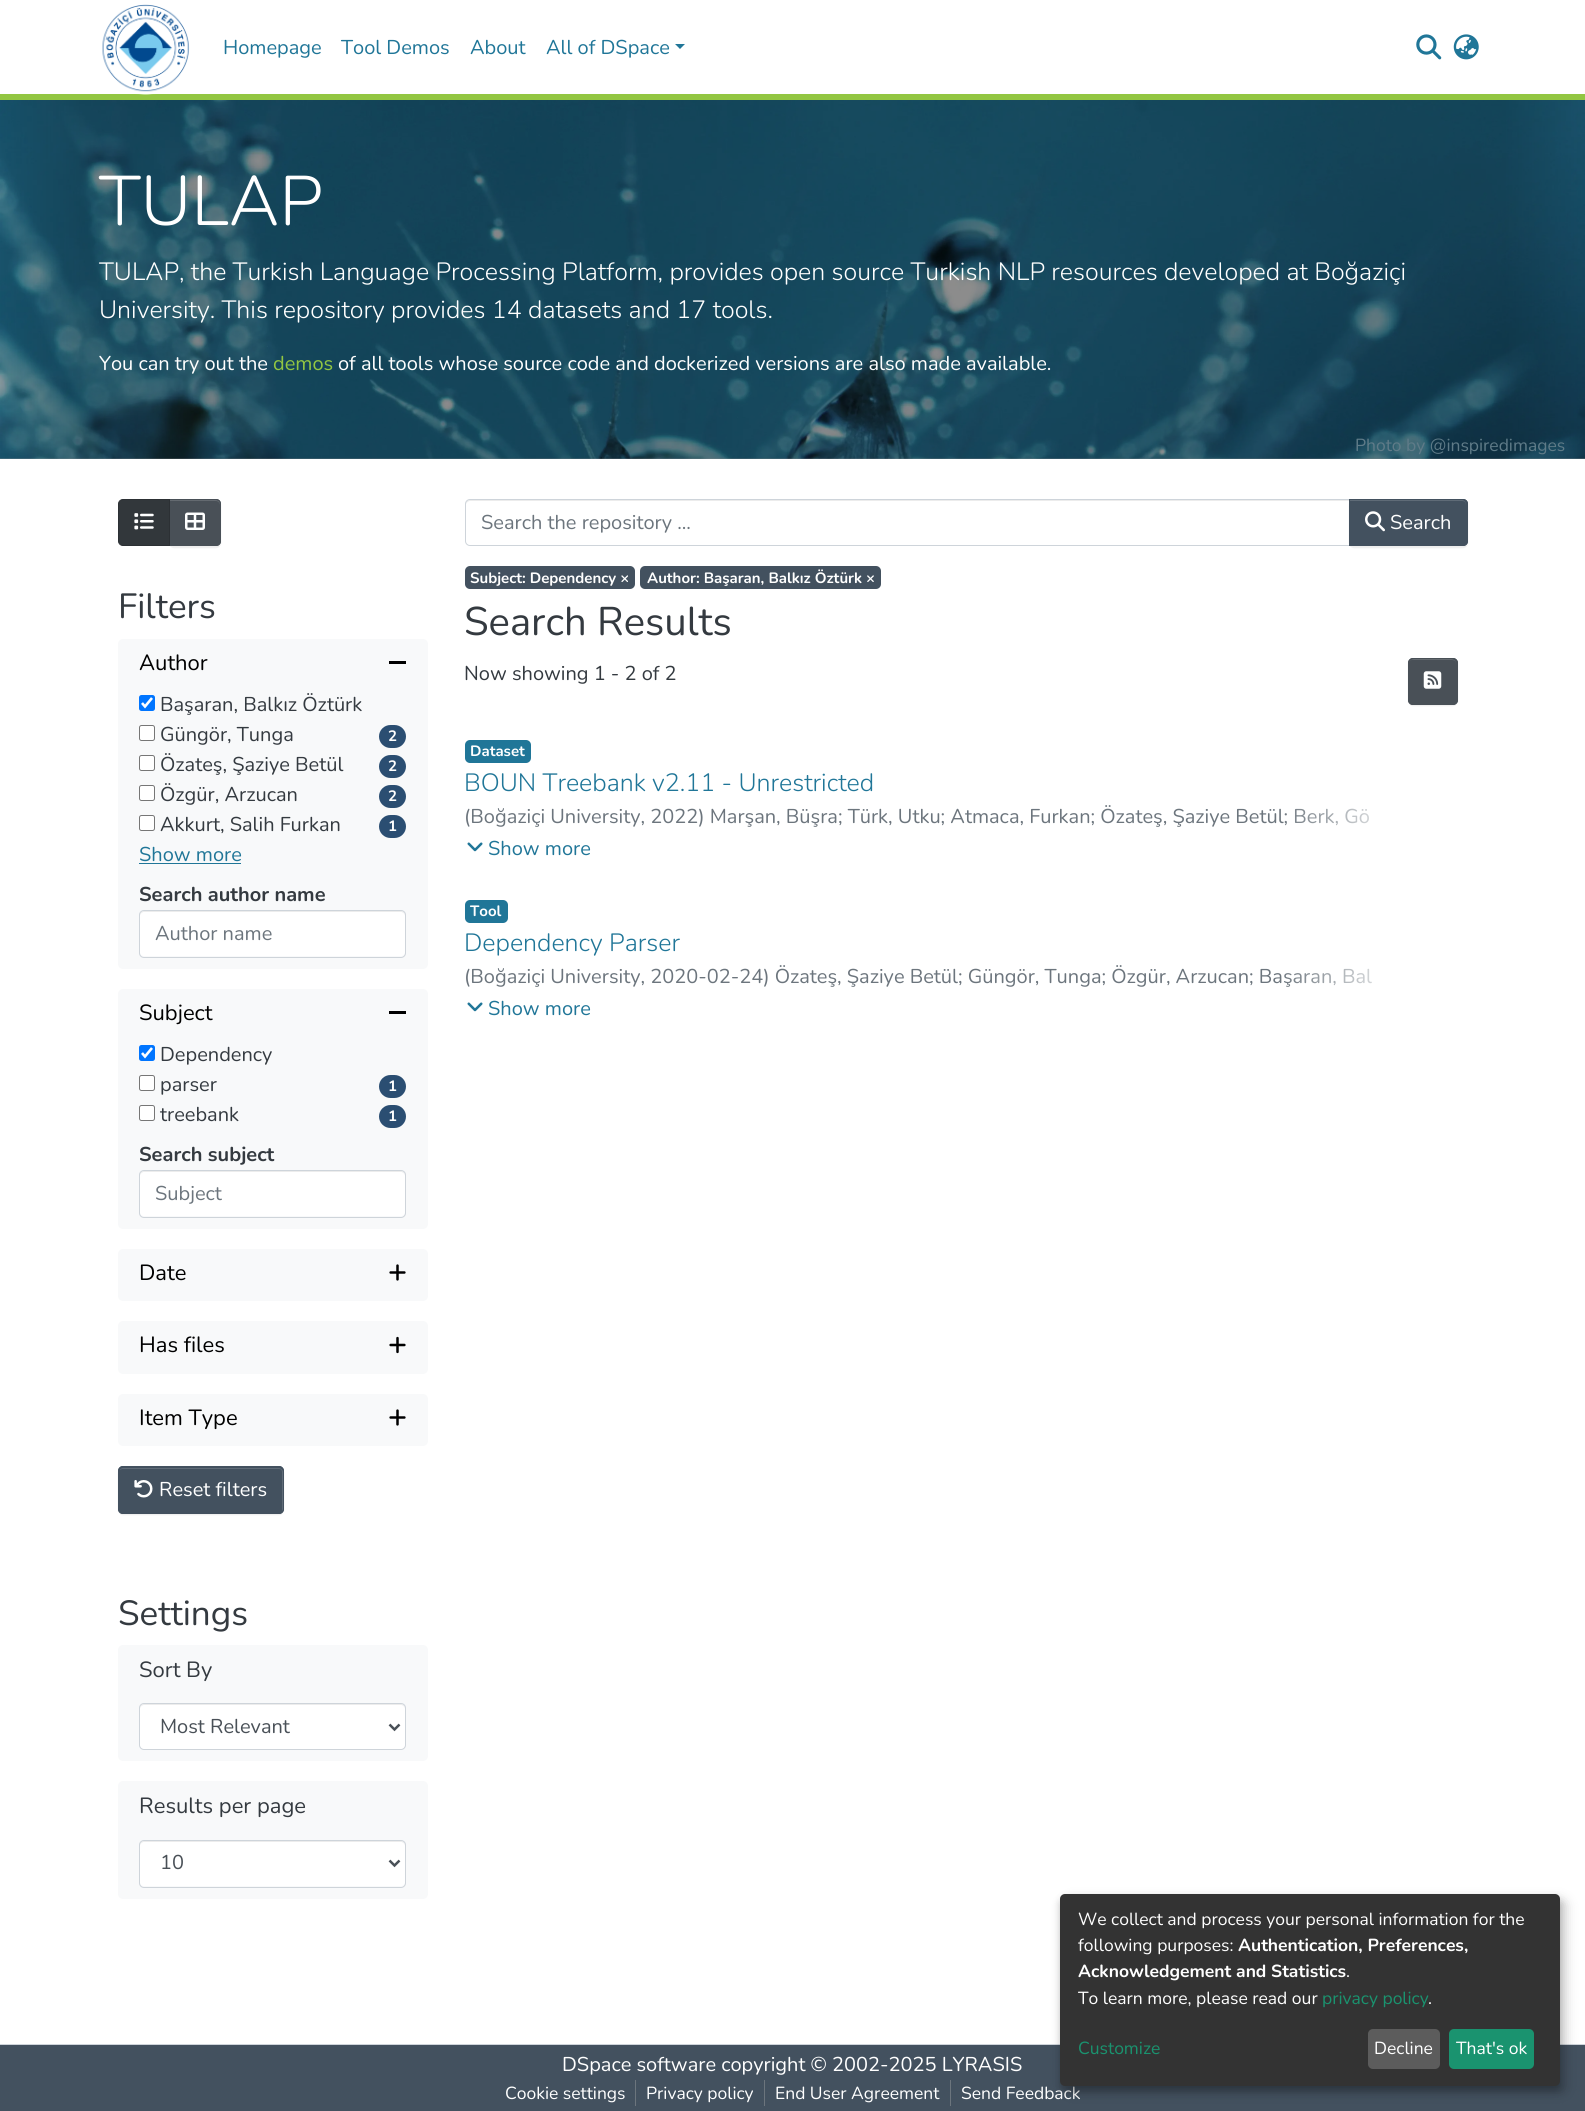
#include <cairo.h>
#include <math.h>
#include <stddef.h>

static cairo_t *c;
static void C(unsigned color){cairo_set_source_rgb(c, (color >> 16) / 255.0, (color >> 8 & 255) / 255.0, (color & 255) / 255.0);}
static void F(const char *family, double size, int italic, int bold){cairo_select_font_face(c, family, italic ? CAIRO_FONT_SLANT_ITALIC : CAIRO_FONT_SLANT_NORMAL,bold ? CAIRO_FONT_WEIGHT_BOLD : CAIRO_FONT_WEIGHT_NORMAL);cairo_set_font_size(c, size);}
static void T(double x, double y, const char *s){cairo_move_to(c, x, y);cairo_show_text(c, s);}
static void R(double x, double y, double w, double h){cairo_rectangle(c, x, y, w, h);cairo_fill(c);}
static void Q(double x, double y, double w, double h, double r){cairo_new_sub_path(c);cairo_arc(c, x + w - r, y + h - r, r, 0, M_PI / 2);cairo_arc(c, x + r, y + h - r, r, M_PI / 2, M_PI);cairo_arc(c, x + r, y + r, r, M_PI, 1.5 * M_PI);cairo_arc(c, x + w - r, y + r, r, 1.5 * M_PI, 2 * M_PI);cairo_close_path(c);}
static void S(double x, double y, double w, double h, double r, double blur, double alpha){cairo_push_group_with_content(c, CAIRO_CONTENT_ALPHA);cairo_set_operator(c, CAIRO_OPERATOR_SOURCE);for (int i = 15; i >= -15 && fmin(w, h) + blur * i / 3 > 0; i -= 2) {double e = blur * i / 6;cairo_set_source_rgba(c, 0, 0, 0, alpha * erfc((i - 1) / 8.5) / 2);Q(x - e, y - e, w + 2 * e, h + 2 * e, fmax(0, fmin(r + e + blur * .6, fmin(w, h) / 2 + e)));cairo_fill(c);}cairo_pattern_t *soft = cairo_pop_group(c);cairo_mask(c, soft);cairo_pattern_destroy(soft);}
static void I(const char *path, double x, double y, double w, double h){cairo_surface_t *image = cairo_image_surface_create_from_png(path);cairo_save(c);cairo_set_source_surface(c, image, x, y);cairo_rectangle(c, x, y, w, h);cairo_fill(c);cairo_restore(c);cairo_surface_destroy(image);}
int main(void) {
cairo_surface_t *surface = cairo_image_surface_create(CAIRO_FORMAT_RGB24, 1585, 2111);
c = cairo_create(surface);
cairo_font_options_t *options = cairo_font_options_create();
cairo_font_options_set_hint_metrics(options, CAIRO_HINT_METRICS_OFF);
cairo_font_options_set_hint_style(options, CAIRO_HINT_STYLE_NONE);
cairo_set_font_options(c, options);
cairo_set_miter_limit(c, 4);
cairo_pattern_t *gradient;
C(0xffffff);
cairo_paint(c);
C(0x92c642);
R(0,94,1585,6);
I("1.png",102,4,88,91);
F("Nunito",20,0,0);
C(0x207698);
T(223,54,"Homepage");
T(341,54,"Tool Demos");
T(470,54,"About");
T(546,54,"All of DSpace");
cairo_new_path(c);
cairo_move_to(c,675,44);
cairo_line_to(c,685,44);
cairo_line_to(c,680,49);
cairo_close_path(c);
cairo_fill(c);
I("2.png",1416,34,26,26);
I("3.png",1453,34,26,26);
I("4.png",0,100,1585,359);
cairo_set_source_rgba(c,0,0,0,0.45);
R(80,100,1425,359);
gradient = cairo_pattern_create_linear(80,279,-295,279);
cairo_pattern_add_color_stop_rgba(gradient,0,0,0,0,.45);
cairo_pattern_add_color_stop_rgba(gradient,1,0,0,0,0);
cairo_set_source(c,gradient);
cairo_pattern_destroy(gradient);
R(0,100,80,359);
F("Nunito Light",70,0,0);
C(0xffffff);
T(99,225,"TULAP");
F("Nunito Light",25,0,0);
T(99,280,"TULAP, the Turkish Language Processing Platform, provides open source Turkish NLP resources developed at Boğaziçi");
T(99,318,"University. This repository provides 14 datasets and 17 tools.");
F("Nunito",20,0,0);
T(99,370,"You can try out the");
C(0x92c642);
T(273,370,"demos");
C(0xffffff);
T(338,370,"of all tools whose source code and dockerized versions are also made available.");
gradient = cairo_pattern_create_linear(1505,279,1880,279);
cairo_pattern_add_color_stop_rgba(gradient,0,0,0,0,.45);
cairo_pattern_add_color_stop_rgba(gradient,1,0,0,0,0);
cairo_set_source(c,gradient);
cairo_pattern_destroy(gradient);
R(1505,100,80,359);
F("Nunito",17.5,0,0);
C(0x5f7b88);
T(1355,451,"Photo by @inspiredimages");
C(0x000000);
S(169,500,52,48,5,.5,.07);
C(0x495057);
cairo_new_path(c);
cairo_move_to(c,169,499);
cairo_line_to(c,216,499);
cairo_curve_to(c,219,499,221,501,221,504);
cairo_line_to(c,221,541);
cairo_curve_to(c,221,544,219,546,216,546);
cairo_line_to(c,169,546);
cairo_close_path(c);
cairo_fill(c);
C(0x646a70);
cairo_new_path(c);
cairo_move_to(c,170,501);
cairo_line_to(c,216,501);
cairo_curve_to(c,218,501,220,503,220,505);
cairo_line_to(c,220,504);
cairo_curve_to(c,220,502,218,500,216,500);
cairo_line_to(c,170,500);
cairo_close_path(c);
cairo_fill(c);
cairo_new_path(c);
cairo_move_to(c,169.5,499.5);
cairo_line_to(c,216,499.5);
cairo_curve_to(c,218.5,499.5,220.5,501.5,220.5,504);
cairo_line_to(c,220.5,541);
cairo_curve_to(c,220.5,543.5,218.5,545.5,216,545.5);
cairo_line_to(c,169.5,545.5);
cairo_close_path(c);
C(0x495057);
cairo_set_line_width(c,1);
cairo_stroke(c);
C(0x32373b);
cairo_new_path(c);
cairo_move_to(c,123,499.5);
cairo_line_to(c,169.5,499.5);
cairo_line_to(c,169.5,545.5);
cairo_line_to(c,123,545.5);
cairo_curve_to(c,120.5,545.5,118.5,543.5,118.5,541);
cairo_line_to(c,118.5,504);
cairo_curve_to(c,118.5,501.5,120.5,499.5,123,499.5);
cairo_close_path(c);
cairo_fill_preserve(c);
C(0x2c3034);
cairo_stroke(c);
I("5.png",134,513,20,17);
I("6.png",185,512,20,18);
F("Nunito",35,0,0);
C(0x343a40);
T(118,618,"Filters");
C(0xf8f9fa);
Q(118,639,310,330,5);
cairo_fill(c);
F("Nunito",22,0,0);
C(0x000000);
T(139,670,"Author");
R(389,661,17,3);
C(0x0075ff);
Q(139,695,16,16,2.5);
cairo_fill(c);
cairo_new_path(c);
cairo_move_to(c,142,703);
cairo_line_to(c,145,706.5);
cairo_line_to(c,152,698);
C(0xffffff);
cairo_set_line_width(c,2.6);
cairo_stroke(c);
F("Nunito",20,0,0);
C(0x343a40);
T(160,711,"Başaran, Balkız Öztürk");
C(0xffffff);
Q(139.5,725.5,15,15,2);
cairo_fill_preserve(c);
C(0x767676);
cairo_set_line_width(c,1);
cairo_stroke(c);
C(0x343a40);
T(160,741,"Güngör, Tunga");
C(0x2b4e72);
Q(379,725,27,23,11.5);
cairo_fill(c);
F("Nunito",15,0,1);
C(0xffffff);
T(388,741,"2");
Q(139.5,755.5,15,15,2);
cairo_fill_preserve(c);
C(0x767676);
cairo_stroke(c);
F("Nunito",20,0,0);
C(0x343a40);
T(160,771,"Özateş, Şaziye Betül");
C(0x2b4e72);
Q(379,755,27,23,11.5);
cairo_fill(c);
F("Nunito",15,0,1);
C(0xffffff);
T(388,771,"2");
Q(139.5,785.5,15,15,2);
cairo_fill_preserve(c);
C(0x767676);
cairo_stroke(c);
F("Nunito",20,0,0);
C(0x343a40);
T(160,801,"Özgür, Arzucan");
C(0x2b4e72);
Q(379,785,27,23,11.5);
cairo_fill(c);
F("Nunito",15,0,1);
C(0xffffff);
T(388,801,"2");
Q(139.5,815.5,15,15,2);
cairo_fill_preserve(c);
C(0x767676);
cairo_stroke(c);
F("Nunito",20,0,0);
C(0x343a40);
T(160,831,"Akkurt, Salih Furkan");
C(0x2b4e72);
Q(379,815,27,23,11.5);
cairo_fill(c);
F("Nunito",15,0,1);
C(0xffffff);
T(388,831,"1");
F("Nunito",20,0,0);
C(0x207698);
T(139,861,"Show more");
R(139,863,102,1);
F("Nunito",20,0,1);
C(0x343a40);
T(139,901,"Search author name");
C(0xffffff);
Q(140,911,265,45,4);
cairo_fill(c);
C(0xececec);
cairo_new_path(c);
cairo_move_to(c,144,912);
cairo_line_to(c,401,912);
cairo_curve_to(c,403,912,405,914,405,916);
cairo_line_to(c,405,915);
cairo_curve_to(c,405,913,403,911,401,911);
cairo_line_to(c,144,911);
cairo_curve_to(c,142,911,140,913,140,915);
cairo_line_to(c,140,916);
cairo_curve_to(c,140,914,142,912,144,912);
cairo_close_path(c);
cairo_fill(c);
Q(139.5,910.5,266,47,4.5);
C(0xced4da);
cairo_stroke(c);
F("Nunito",20,0,0);
C(0x6c757d);
T(155,940,"Author name");
C(0xf8f9fa);
Q(118,989,310,240,5);
cairo_fill(c);
F("Nunito",22,0,0);
C(0x000000);
T(139,1020,"Subject");
R(389,1011,17,3);
C(0x0075ff);
Q(139,1045,16,16,2.5);
cairo_fill(c);
cairo_new_path(c);
cairo_move_to(c,142,1053);
cairo_line_to(c,145,1056.5);
cairo_line_to(c,152,1048);
C(0xffffff);
cairo_set_line_width(c,2.6);
cairo_stroke(c);
F("Nunito",20,0,0);
C(0x343a40);
T(160,1061,"Dependency");
C(0xffffff);
Q(139.5,1075.5,15,15,2);
cairo_fill_preserve(c);
C(0x767676);
cairo_set_line_width(c,1);
cairo_stroke(c);
C(0x343a40);
T(160,1091,"parser");
C(0x2b4e72);
Q(379,1075,27,23,11.5);
cairo_fill(c);
F("Nunito",15,0,1);
C(0xffffff);
T(388,1091,"1");
Q(139.5,1105.5,15,15,2);
cairo_fill_preserve(c);
C(0x767676);
cairo_stroke(c);
F("Nunito",20,0,0);
C(0x343a40);
T(160,1121,"treebank");
C(0x2b4e72);
Q(379,1105,27,23,11.5);
cairo_fill(c);
F("Nunito",15,0,1);
C(0xffffff);
T(388,1121,"1");
F("Nunito",20,0,1);
C(0x343a40);
T(139,1161,"Search subject");
C(0xffffff);
Q(140,1171,265,45,4);
cairo_fill(c);
C(0xececec);
cairo_new_path(c);
cairo_move_to(c,144,1172);
cairo_line_to(c,401,1172);
cairo_curve_to(c,403,1172,405,1174,405,1176);
cairo_line_to(c,405,1175);
cairo_curve_to(c,405,1173,403,1171,401,1171);
cairo_line_to(c,144,1171);
cairo_curve_to(c,142,1171,140,1173,140,1175);
cairo_line_to(c,140,1176);
cairo_curve_to(c,140,1174,142,1172,144,1172);
cairo_close_path(c);
cairo_fill(c);
Q(139.5,1170.5,266,47,4.5);
C(0xced4da);
cairo_stroke(c);
F("Nunito",20,0,0);
C(0x6c757d);
T(155,1200,"Subject");
C(0xf8f9fa);
Q(118,1249,310,52,5);
cairo_fill(c);
F("Nunito",22,0,0);
C(0x000000);
T(139,1280,"Date");
I("7.png",389,1264,17,17);
C(0xf8f9fa);
Q(118,1321,310,53,5);
cairo_fill(c);
C(0x000000);
T(139,1352,"Has files");
I("8.png",389,1336,17,18);
C(0xf8f9fa);
Q(118,1394,310,52,5);
cairo_fill(c);
C(0x000000);
T(139,1425,"Item Type");
I("7.png",389,1409,17,17);
C(0x000000);
S(118,1468,166,47,5,.5,.07);
C(0x43515f);
Q(118,1466,166,48,5);
cairo_fill(c);
C(0x5f6b77);
cairo_new_path(c);
cairo_move_to(c,122,1469);
cairo_line_to(c,279,1469);
cairo_curve_to(c,281,1469,282,1470,282,1472);
cairo_line_to(c,282,1512);
cairo_curve_to(c,282,1511,283,1510,283,1509);
cairo_line_to(c,283,1472);
cairo_curve_to(c,283,1470,281,1468,279,1468);
cairo_line_to(c,123,1468);
cairo_curve_to(c,122,1468,120,1469,120,1470);
cairo_close_path(c);
cairo_fill(c);
Q(118.5,1466.5,165,47,4.5);
C(0x43515f);
cairo_stroke(c);
I("9.png",134,1480,19,18);
F("Nunito",20,0,0);
C(0xffffff);
T(159,1496,"Reset filters");
F("Nunito",35,0,0);
C(0x343a40);
T(118,1625,"Settings");
C(0xf8f9fa);
Q(118,1645,310,116,5);
cairo_fill(c);
F("Nunito",22,0,0);
C(0x343a40);
T(139,1677,"Sort By");
C(0xffffff);
Q(140,1704,265,45,4);
cairo_fill(c);
C(0xececec);
cairo_new_path(c);
cairo_move_to(c,144,1705);
cairo_line_to(c,401,1705);
cairo_curve_to(c,403,1705,405,1707,405,1709);
cairo_line_to(c,405,1708);
cairo_curve_to(c,405,1706,403,1704,401,1704);
cairo_line_to(c,144,1704);
cairo_curve_to(c,142,1704,140,1706,140,1708);
cairo_line_to(c,140,1709);
cairo_curve_to(c,140,1707,142,1705,144,1705);
cairo_close_path(c);
cairo_fill(c);
Q(139.5,1703.5,266,46,4.5);
C(0xced4da);
cairo_stroke(c);
cairo_new_path(c);
cairo_move_to(c,389.5,1724.5);
cairo_line_to(c,394.5,1729.5);
cairo_line_to(c,399.5,1724.5);
C(0x495057);
cairo_set_line_width(c,2.5);
cairo_stroke(c);
F("Nunito",20,0,0);
T(160,1733,"Most Relevant");
C(0xf8f9fa);
Q(118,1781,310,118,5);
cairo_fill(c);
F("Nunito",22,0,0);
C(0x343a40);
T(139,1813,"Results per page");
C(0xffffff);
Q(140,1841,265,45,4);
cairo_fill(c);
C(0xececec);
cairo_new_path(c);
cairo_move_to(c,144,1842);
cairo_line_to(c,401,1842);
cairo_curve_to(c,403,1842,405,1844,405,1846);
cairo_line_to(c,405,1845);
cairo_curve_to(c,405,1843,403,1841,401,1841);
cairo_line_to(c,144,1841);
cairo_curve_to(c,142,1841,140,1843,140,1845);
cairo_line_to(c,140,1846);
cairo_curve_to(c,140,1844,142,1842,144,1842);
cairo_close_path(c);
cairo_fill(c);
Q(139.5,1840.5,266,47,4.5);
C(0xced4da);
cairo_set_line_width(c,1);
cairo_stroke(c);
cairo_new_path(c);
cairo_move_to(c,389.5,1860.5);
cairo_line_to(c,394.5,1865.5);
cairo_line_to(c,399.5,1860.5);
C(0x495057);
cairo_set_line_width(c,2.5);
cairo_stroke(c);
F("Nunito",20,0,0);
T(160,1869,"10");
C(0xececec);
cairo_new_path(c);
cairo_move_to(c,470,501);
cairo_line_to(c,1349,501);
cairo_line_to(c,1349,500);
cairo_line_to(c,470,500);
cairo_curve_to(c,467,500,466,502,466,505);
cairo_curve_to(c,466,503,468,501,470,501);
cairo_close_path(c);
cairo_fill(c);
cairo_new_path(c);
cairo_move_to(c,470,499.5);
cairo_line_to(c,1349.5,499.5);
cairo_line_to(c,1349.5,545.5);
cairo_line_to(c,470,545.5);
cairo_curve_to(c,467.5,545.5,465.5,543.5,465.5,541);
cairo_line_to(c,465.5,504);
cairo_curve_to(c,465.5,501.5,467.5,499.5,470,499.5);
cairo_close_path(c);
C(0xced4da);
cairo_set_line_width(c,1);
cairo_stroke(c);
C(0x6c757d);
T(481,529,"Search the repository ...");
C(0x000000);
S(1349,500,119,48,5,.5,.07);
C(0x43515f);
cairo_new_path(c);
cairo_move_to(c,1349,499);
cairo_line_to(c,1463,499);
cairo_curve_to(c,1466,499,1468,501,1468,504);
cairo_line_to(c,1468,541);
cairo_curve_to(c,1468,544,1466,546,1463,546);
cairo_line_to(c,1349,546);
cairo_close_path(c);
cairo_fill(c);
C(0x5f6b77);
cairo_new_path(c);
cairo_move_to(c,1350,501);
cairo_line_to(c,1462,501);
cairo_curve_to(c,1465,501,1466,503,1466,505);
cairo_line_to(c,1466,504);
cairo_curve_to(c,1466,502,1464,500,1462,500);
cairo_line_to(c,1350,500);
cairo_close_path(c);
cairo_fill(c);
cairo_new_path(c);
cairo_move_to(c,1349.5,499.5);
cairo_line_to(c,1463,499.5);
cairo_curve_to(c,1465.5,499.5,1467.5,501.5,1467.5,504);
cairo_line_to(c,1467.5,541);
cairo_curve_to(c,1467.5,543.5,1465.5,545.5,1463,545.5);
cairo_line_to(c,1349.5,545.5);
cairo_close_path(c);
C(0x43515f);
cairo_stroke(c);
I("10.png",1365,511,20,21);
C(0xffffff);
T(1390,529,"Search");
C(0x43515f);
Q(465,566,170,23,5);
cairo_fill(c);
F("Nunito",15,0,1);
C(0xffffff);
T(470,583,"Subject: Dependency ×");
C(0x43515f);
Q(640,566,241,23,5);
cairo_fill(c);
C(0xffffff);
T(647,583,"Author: Başaran, Balkız Öztürk ×");
F("Nunito",40,0,0);
C(0x343a40);
T(464,635,"Search Results");
F("Nunito",20,0,0);
T(464,680,"Now showing 1 - 2 of 2");
C(0x000000);
S(1408,659,50,47,5,.5,.07);
C(0x495057);
Q(1408,658,50,47,5);
cairo_fill(c);
C(0x646a70);
cairo_new_path(c);
cairo_move_to(c,1412,660);
cairo_line_to(c,1452,660);
cairo_curve_to(c,1455,660,1456,662,1456,664);
cairo_curve_to(c,1456,658,1450,659,1446,659);
cairo_line_to(c,1420,659);
cairo_curve_to(c,1415,659,1409,658,1409,664);
cairo_curve_to(c,1409,662,1410,660,1412,660);
cairo_close_path(c);
cairo_fill(c);
Q(1408.5,658.5,49,46,4.5);
C(0x495057);
cairo_stroke(c);
I("11.png",1423,671,19,18);
C(0x207698);
Q(465,740,66,23,5);
cairo_fill(c);
F("Nunito",15,0,1);
C(0xffffff);
T(470,756,"Dataset");
F("Nunito Light",25,0,0);
C(0x207698);
T(464,791,"BOUN Treebank v2.11 - Unrestricted");
F("Nunito",20,0,0);
C(0x6c757d);
T(464,823,"(Boğaziçi University, 2022) Marşan, Büşra; Türk, Utku; Atmaca, Furkan; Özateş, Şaziye Betül; Berk, Gö");
gradient = cairo_pattern_create_linear(1280,818,1468,818);
cairo_pattern_add_color_stop_rgba(gradient,0,1,1,1,0);
cairo_pattern_add_color_stop_rgba(gradient,.7,1,1,1,1);
cairo_set_source(c,gradient);
cairo_pattern_destroy(gradient);
R(1283,808,87,18);
I("12.png",467,842,16,10);
C(0x207698);
T(488,855,"Show more");
Q(465,900,43,23,5);
cairo_fill(c);
F("Nunito",15,0,1);
C(0xffffff);
T(470,916,"Tool");
F("Nunito Light",25,0,0);
C(0x207698);
T(464,951,"Dependency Parser");
F("Nunito",20,0,0);
C(0x6c757d);
T(464,983,"(Boğaziçi University, 2020-02-24) Özateş, Şaziye Betül; Güngör, Tunga; Özgür, Arzucan; Başaran, Bal");
gradient = cairo_pattern_create_linear(1280,978,1468,978);
cairo_pattern_add_color_stop_rgba(gradient,0,1,1,1,0);
cairo_pattern_add_color_stop_rgba(gradient,.7,1,1,1,1);
cairo_set_source(c,gradient);
cairo_pattern_destroy(gradient);
R(1284,968,89,19);
I("12.png",467,1002,16,10);
C(0x207698);
T(488,1015,"Show more");
C(0x43515f);
R(0,2045,1585,66);
C(0xced4da);
R(0,2044,1585,1);
C(0xffffff);
T(562,2071,"DSpace software copyright © 2002-2025 LYRASIS");
F("Nunito",17.5,0,0);
T(505,2099,"Cookie settings");
C(0x6c757d);
R(635,2080,1,26);
C(0xffffff);
T(646,2099,"Privacy policy");
C(0x6c757d);
R(764,2080,1,26);
C(0xffffff);
T(775,2099,"End User Agreement");
C(0x6c757d);
R(950,2080,1,26);
C(0xffffff);
T(961,2099,"Send Feedback");
C(0x000000);
S(1066,1900,500,193,5,6,.19);
S(1060,1899,500,192,5,4,.2);
C(0x333333);
Q(1060,1894,500,192,5);
cairo_fill(c);
C(0xffffff);
T(1078,1925,"We collect and process your personal information for the");
T(1078,1951,"following purposes:");
F("Nunito",17.5,0,1);
T(1238,1951,"Authentication, Preferences,");
T(1078,1977,"Acknowledgement and Statistics");
F("Nunito",17.5,0,0);
T(1346,1977,".");
T(1078,2004,"To learn more, please read our");
C(0x1a936f);
T(1322,2004,"privacy policy");
C(0xffffff);
T(1428,2004,".");
C(0x1a936f);
T(1078,2054,"Customize");
C(0x5c5c5c);
Q(1368,2029,72,40,5);
cairo_fill(c);
C(0xffffff);
T(1374,2054,"Decline");
C(0x1a936f);
Q(1449,2029,85,40,5);
cairo_fill(c);
C(0xffffff);
T(1456,2054,"That's ok");
cairo_surface_write_to_png(surface, "o.png");
cairo_font_options_destroy(options);
cairo_destroy(c);
cairo_surface_destroy(surface);
return 0;
}
